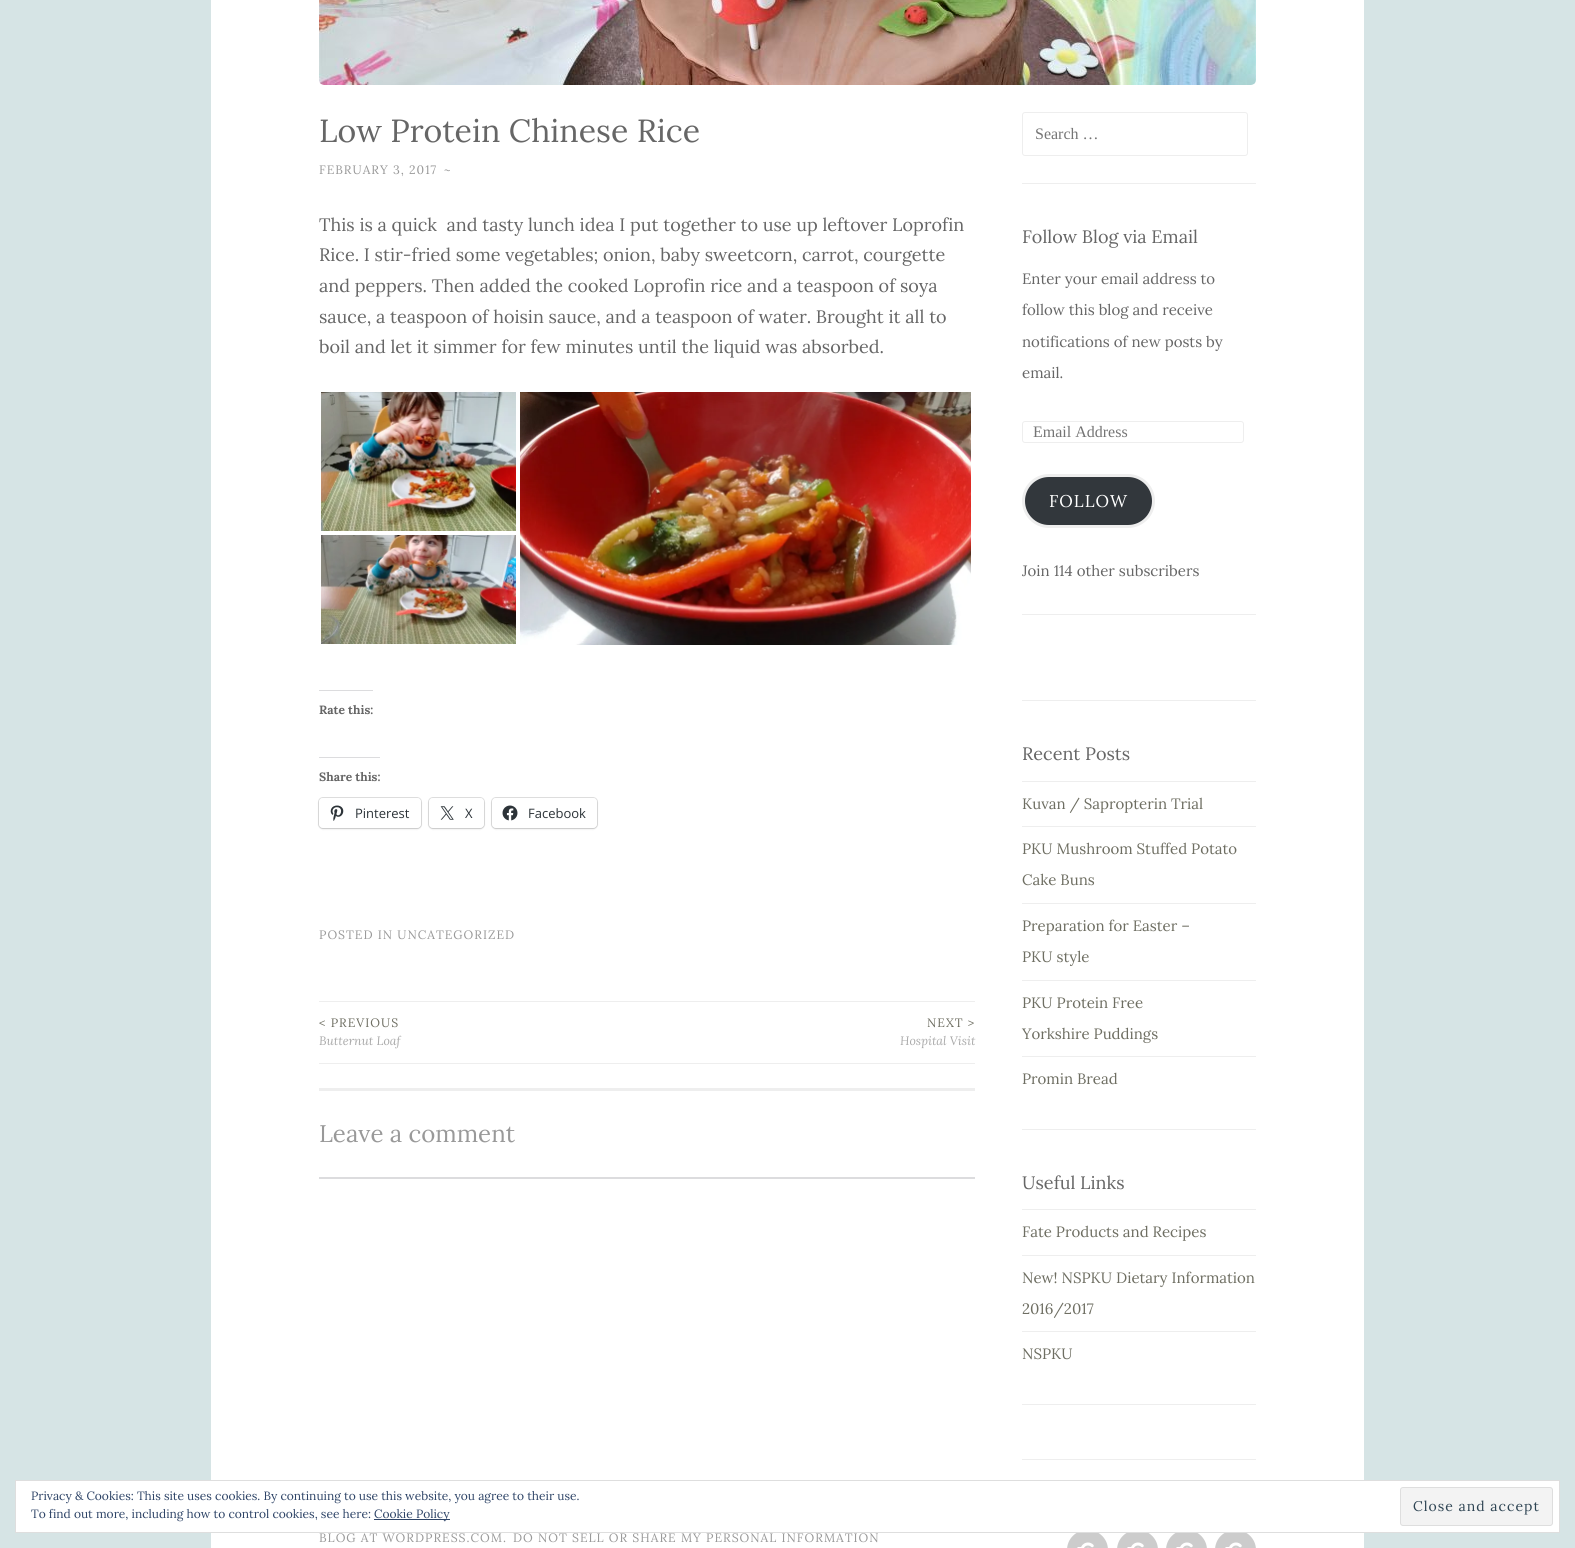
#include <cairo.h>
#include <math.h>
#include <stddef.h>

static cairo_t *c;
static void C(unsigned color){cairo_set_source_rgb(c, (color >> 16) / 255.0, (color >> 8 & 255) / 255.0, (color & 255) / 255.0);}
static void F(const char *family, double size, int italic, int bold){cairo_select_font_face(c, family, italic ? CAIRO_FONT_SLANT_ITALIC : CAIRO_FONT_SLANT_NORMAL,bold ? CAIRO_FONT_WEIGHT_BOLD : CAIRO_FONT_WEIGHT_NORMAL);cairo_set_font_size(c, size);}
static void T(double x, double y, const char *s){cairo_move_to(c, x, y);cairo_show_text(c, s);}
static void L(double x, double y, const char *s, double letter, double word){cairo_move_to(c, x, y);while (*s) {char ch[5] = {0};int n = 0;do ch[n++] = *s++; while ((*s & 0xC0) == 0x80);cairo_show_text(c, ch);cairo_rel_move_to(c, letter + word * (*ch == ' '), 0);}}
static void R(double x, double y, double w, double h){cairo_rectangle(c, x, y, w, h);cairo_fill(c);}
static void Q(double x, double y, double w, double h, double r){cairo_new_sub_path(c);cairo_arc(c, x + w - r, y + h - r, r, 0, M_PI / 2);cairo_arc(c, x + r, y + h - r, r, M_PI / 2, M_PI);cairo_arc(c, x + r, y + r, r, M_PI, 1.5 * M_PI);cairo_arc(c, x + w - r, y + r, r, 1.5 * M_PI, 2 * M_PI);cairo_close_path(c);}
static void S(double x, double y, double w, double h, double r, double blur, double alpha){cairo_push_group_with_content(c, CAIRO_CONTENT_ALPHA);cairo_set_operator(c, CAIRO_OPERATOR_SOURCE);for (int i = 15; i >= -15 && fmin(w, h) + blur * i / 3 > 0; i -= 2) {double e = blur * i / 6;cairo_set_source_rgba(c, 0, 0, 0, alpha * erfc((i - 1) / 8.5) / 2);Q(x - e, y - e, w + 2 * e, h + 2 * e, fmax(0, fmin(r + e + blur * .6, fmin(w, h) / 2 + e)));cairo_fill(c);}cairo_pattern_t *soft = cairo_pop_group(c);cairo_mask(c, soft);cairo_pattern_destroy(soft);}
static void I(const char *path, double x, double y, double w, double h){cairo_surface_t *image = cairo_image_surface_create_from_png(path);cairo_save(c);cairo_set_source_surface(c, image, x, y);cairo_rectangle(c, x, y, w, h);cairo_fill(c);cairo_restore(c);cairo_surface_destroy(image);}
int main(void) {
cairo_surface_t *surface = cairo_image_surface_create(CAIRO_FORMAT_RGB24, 1575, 1548);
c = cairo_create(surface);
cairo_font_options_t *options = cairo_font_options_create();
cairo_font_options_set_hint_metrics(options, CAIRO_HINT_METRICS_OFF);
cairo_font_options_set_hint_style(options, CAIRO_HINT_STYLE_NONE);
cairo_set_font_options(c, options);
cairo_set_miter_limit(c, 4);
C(0xd6e4e5);
cairo_paint(c);
C(0xffffff);
R(211,0,1153,1548);
I("1.png",319,0,937,85);
F("Lora",32,0,0);
C(0x666666);
T(319,142,"Low Protein Chinese Rice");
F("Lora",12.2,0,0);
C(0x999999);
L(319,174,"FEBRUARY 3, 2017",1,0);
L(444,174,"~",1,0);
F("Lora",18,0,0);
C(0x666666);
T(319,231,"This is a quick  and tasty lunch idea I put together to use up leftover Loprofin");
T(319,261,"Rice. I stir-fried some vegetables; onion, baby sweetcorn, carrot, courgette");
T(319,292,"and peppers. Then added the cooked Loprofin rice and a teaspoon of soya");
T(319,323,"sauce, a teaspoon of hoisin sauce, and a teaspoon of water. Brought it all to");
T(319,353,"boil and let it simmer for few minutes until the liquid was absorbed.");
I("2.png",321,392,195,139);
I("3.png",321,535,195,109);
I("4.png",520,392,451,253);
C(0xdcdcde);
R(319,690,54,1);
F("Lora",12,0,1);
C(0x666666);
T(319,714,"Rate this:");
C(0xdcdcde);
R(319,757,61,1);
C(0x666666);
T(319,781,"Share this:");
Q(318.5,797.5,103,31,4.5);
C(0xe0e0e0);
cairo_set_line_width(c,1);
cairo_stroke(c);
C(0x000000);
S(319,799,102,30,4,1,.12);
C(0xffffff);
Q(319,798,102,30,4);
cairo_fill(c);
I("5.png",330,805,14,16);
F("Open Sans",13,0,0);
C(0x2c3338);
T(355,818,"Pinterest");
Q(428.5,797.5,56,31,4.5);
C(0xe0e0e0);
cairo_stroke(c);
C(0x000000);
S(429,799,55,30,4,1,.12);
C(0xffffff);
Q(429,798,55,30,4);
cairo_fill(c);
I("6.png",440,806,14,14);
C(0x2c3338);
T(465,818,"X");
Q(491.5,797.5,106,31,4.5);
C(0xe0e0e0);
cairo_stroke(c);
C(0x000000);
S(492,799,105,30,4,1,.12);
C(0xffffff);
Q(492,798,105,30,4);
cairo_fill(c);
I("7.png",502,805,16,16);
C(0x2c3338);
T(528,818,"Facebook");
F("Lora",12.2,0,0);
C(0x999999);
L(319,939,"POSTED IN UNCATEGORIZED",1,0);
C(0xeeeeee);
R(319,1001,656,1);
R(319,1063,656,1);
C(0x6e6e62);
L(319,1027,"< PREVIOUS",1,0);
F("Lora",12.2,1,0);
C(0xaaaaaa);
T(319,1045,"Butternut Loaf");
F("Lora",12.2,0,0);
C(0x6e6e62);
L(927,1027,"NEXT >",1,0);
F("Lora",12.2,1,0);
C(0xaaaaaa);
T(900,1045,"Hospital Visit");
C(0xeeeeee);
R(319,1088,656,3);
F("Lora",24,0,0);
C(0x999999);
T(319,1142,"Leave a comment");
C(0xdcdcde);
R(319,1177,656,2);
C(0xeeeeee);
R(1022,183,234,1);
Q(1022.5,112.5,225,43,2.5);
cairo_stroke(c);
F("Liberation Serif",16,0,0);
C(0x757575);
T(1035,139,"Search …");
C(0xeeeeee);
R(1022,614,234,1);
F("Lora",18,0,0);
C(0x666666);
T(1022,243,"Follow Blog via Email");
F("Lora",15,0,0);
T(1022,284,"Enter your email address to");
T(1022,315,"follow this blog and receive");
T(1022,347,"notifications of new posts by");
T(1022,378,"email.");
Q(1022.5,421.5,221,21,2.5);
C(0xeeeeee);
cairo_stroke(c);
F("Liberation Serif",16,0,0);
C(0x757575);
T(1033,437,"Email Address");
C(0x32373c);
Q(1023.5,475.5,130,51,25.5);
cairo_fill_preserve(c);
C(0xeeeeee);
cairo_set_line_width(c,3);
cairo_stroke(c);
F("Lora",17,0,0);
C(0xffffff);
L(1049,507,"FOLLOW",1,0);
F("Lora",15,0,0);
C(0x666666);
T(1022,576,"Join 114 other subscribers");
C(0xeeeeee);
R(1022,700,234,1);
R(1022,1129,234,1);
F("Lora",18,0,0);
C(0x666666);
T(1022,760,"Recent Posts");
C(0xeeeeee);
R(1022,781,234,1);
F("Lora",15,0,0);
C(0x6e6e62);
T(1022,809,"Kuvan / Sapropterin Trial");
C(0xeeeeee);
R(1022,826,234,1);
C(0x6e6e62);
T(1022,854,"PKU Mushroom Stuffed Potato");
T(1022,885,"Cake Buns");
C(0xeeeeee);
R(1022,903,234,1);
C(0x6e6e62);
T(1022,931,"Preparation for Easter –");
T(1022,962,"PKU style");
C(0xeeeeee);
R(1022,980,234,1);
C(0x6e6e62);
T(1022,1008,"PKU Protein Free");
T(1022,1039,"Yorkshire Puddings");
C(0xeeeeee);
R(1022,1056,234,1);
C(0x6e6e62);
T(1022,1084,"Promin Bread");
C(0xeeeeee);
R(1022,1404,234,1);
F("Lora",18,0,0);
C(0x666666);
T(1022,1189,"Useful Links");
C(0xeeeeee);
R(1022,1209,234,1);
F("Lora",15,0,0);
C(0x6e6e62);
T(1022,1237,"Fate Products and Recipes");
C(0xeeeeee);
R(1022,1255,234,1);
C(0x6e6e62);
T(1022,1283,"New! NSPKU Dietary Information");
T(1022,1314,"2016/2017");
C(0xeeeeee);
R(1022,1331,234,1);
C(0x6e6e62);
T(1022,1359,"NSPKU");
C(0xeeeeee);
R(1022,1459,234,1);
F("Lora",12.2,0,0);
C(0x999999);
L(319,1542,"BLOG AT WORDPRESS.COM.",1,0);
L(513,1542,"DO NOT SELL OR SHARE MY PERSONAL INFORMATION",1,0);
C(0xcccccc);
Q(1067,1530,41,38,20);
cairo_fill(c);
I("8.png",1077,1542,17,6);
Q(1117,1530,41,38,20);
cairo_fill(c);
I("8.png",1127,1542,17,6);
Q(1166,1530,41,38,20);
cairo_fill(c);
I("8.png",1176,1542,17,6);
Q(1215,1530,41,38,20);
cairo_fill(c);
I("8.png",1225,1542,17,6);
C(0xffffff);
cairo_rectangle(c,15.5,1480.5,1544,52);
cairo_fill_preserve(c);
C(0xdedede);
cairo_set_line_width(c,1);
cairo_stroke(c);
F("Lora",12,0,0);
C(0x2e4467);
T(31,1500,"Privacy & Cookies: This site uses cookies. By continuing to use this website, you agree to their use.");
T(31,1518,"To find out more, including how to control cookies, see here:");
R(374,1519,76,1);
T(374,1518,"Cookie Policy");
C(0xf3f3f3);
Q(1400.5,1487.5,152,38,2.5);
cairo_fill_preserve(c);
C(0xdedede);
cairo_stroke(c);
F("Lora",14,0,0);
C(0x2e4453);
L(1413,1511,"Close and accept",1,0);
cairo_surface_write_to_png(surface, "o.png");
cairo_font_options_destroy(options);
cairo_destroy(c);
cairo_surface_destroy(surface);
return 0;
}
